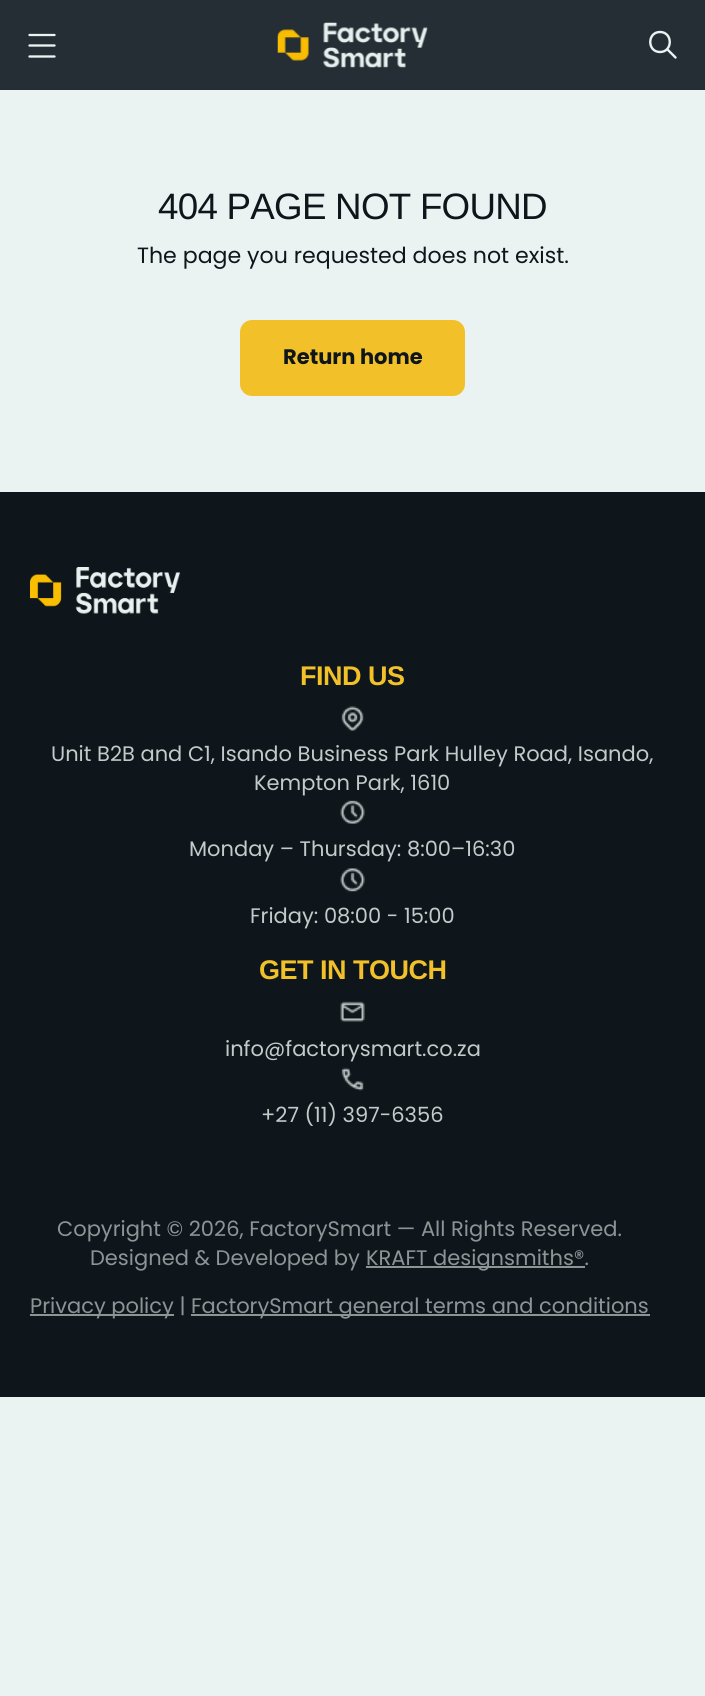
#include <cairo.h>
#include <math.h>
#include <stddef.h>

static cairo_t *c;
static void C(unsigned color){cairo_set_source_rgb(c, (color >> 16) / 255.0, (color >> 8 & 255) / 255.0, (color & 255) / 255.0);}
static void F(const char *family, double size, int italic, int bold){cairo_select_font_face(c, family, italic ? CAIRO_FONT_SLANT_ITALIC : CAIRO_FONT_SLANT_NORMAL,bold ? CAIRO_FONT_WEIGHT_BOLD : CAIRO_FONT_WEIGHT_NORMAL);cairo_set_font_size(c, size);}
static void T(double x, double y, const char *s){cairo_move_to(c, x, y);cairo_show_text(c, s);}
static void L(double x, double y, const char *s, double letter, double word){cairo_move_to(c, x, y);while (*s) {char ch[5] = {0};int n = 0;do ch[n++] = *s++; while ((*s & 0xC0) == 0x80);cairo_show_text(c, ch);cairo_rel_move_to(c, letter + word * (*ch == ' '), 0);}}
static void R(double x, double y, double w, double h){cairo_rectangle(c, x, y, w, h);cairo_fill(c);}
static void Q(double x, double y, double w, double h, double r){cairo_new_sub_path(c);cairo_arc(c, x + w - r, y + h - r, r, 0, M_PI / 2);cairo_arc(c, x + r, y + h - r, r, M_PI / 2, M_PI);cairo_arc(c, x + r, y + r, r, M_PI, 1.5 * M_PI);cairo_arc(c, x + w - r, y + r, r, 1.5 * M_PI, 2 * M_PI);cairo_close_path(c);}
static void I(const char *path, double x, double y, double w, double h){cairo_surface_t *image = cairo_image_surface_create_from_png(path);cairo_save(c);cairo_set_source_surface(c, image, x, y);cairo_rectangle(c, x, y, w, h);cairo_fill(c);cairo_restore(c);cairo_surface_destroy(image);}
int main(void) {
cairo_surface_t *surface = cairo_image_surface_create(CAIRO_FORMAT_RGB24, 705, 1696);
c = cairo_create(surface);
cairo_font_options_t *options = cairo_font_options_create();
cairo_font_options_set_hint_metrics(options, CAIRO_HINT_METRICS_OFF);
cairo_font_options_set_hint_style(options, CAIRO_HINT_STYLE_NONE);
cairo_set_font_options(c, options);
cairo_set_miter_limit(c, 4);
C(0xebf2f2);
cairo_paint(c);
C(0x252e34);
R(0,0,705,90);
cairo_new_path(c);
cairo_move_to(c,29.5,45.5);
cairo_line_to(c,54.5,45.5);
cairo_move_to(c,29.5,56.5);
cairo_line_to(c,54.5,56.5);
cairo_move_to(c,29.5,35);
cairo_line_to(c,54.5,35);
C(0xebf2f2);
cairo_set_line_width(c,2.3);
cairo_set_line_cap(c,CAIRO_LINE_CAP_ROUND);
cairo_set_line_join(c,CAIRO_LINE_JOIN_ROUND);
cairo_stroke(c);
I("1.png",277,22,151,46);
cairo_new_path(c);
cairo_move_to(c,660,52);
cairo_curve_to(c,673,52,673,32,660,32);
cairo_curve_to(c,647,32,647,52,660,52);
cairo_close_path(c);
cairo_move_to(c,667.5,49.5);
cairo_line_to(c,675.5,57.5);
cairo_set_line_width(c,2.4);
cairo_stroke(c);
F("Liberation Sans",36.75,0,0);
C(0x0f161b);
L(158,219,"404 PAGE NOT FOUND",-.75,0);
F("Poppins",22.1,0,0);
T(137,263,"The page you requested does not exist.");
cairo_save(c);
Q(240,320,225,76,12);
cairo_clip(c);
C(0xf2c028);
Q(239,318,228,80,12);
cairo_fill(c);
cairo_restore(c);
F("Poppins",21,0,1);
T(283,364,"Return home");
R(0,492,705,905);
I("2.png",30,567,150,47);
F("Liberation Sans",27,0,1);
C(0xf2c028);
L(300,685,"FIND US",-.5,0);
I("3.png",341,706,23,25);
F("Poppins",21,0,0);
C(0xc4caca);
T(51,761,"Unit B2B and C1, Isando Business Park Hulley Road, Isando,");
T(254,790,"Kempton Park, 1610");
I("4.png",340,800,25,24);
T(189,856,"Monday – Thursday: 8:00–16:30");
I("5.png",340,868,25,24);
T(250,923,"Friday: 08:00 - 15:00");
F("Liberation Sans",27,0,1);
C(0xf2c028);
L(259,979,"GET IN TOUCH",-.5,0);
I("6.png",340,1001,25,21);
F("Poppins",21,0,0);
C(0xc4caca);
T(225,1056,"info@factorysmart.co.za");
I("7.png",341,1067,23,24);
T(261,1122,"+27 (11) 397-6356");
C(0x8e9496);
T(57,1236,"Copyright © 2026, FactorySmart — All Rights Reserved.");
T(90,1265,"Designed & Developed by");
R(366,1266,219,2);
T(366,1265,"KRAFT designsmiths®.");
R(30,1314,144,2);
T(30,1313,"Privacy policy |");
R(191,1314,459,2);
T(191,1313,"FactorySmart general terms and conditions");
cairo_surface_write_to_png(surface, "o.png");
cairo_font_options_destroy(options);
cairo_destroy(c);
cairo_surface_destroy(surface);
return 0;
}
